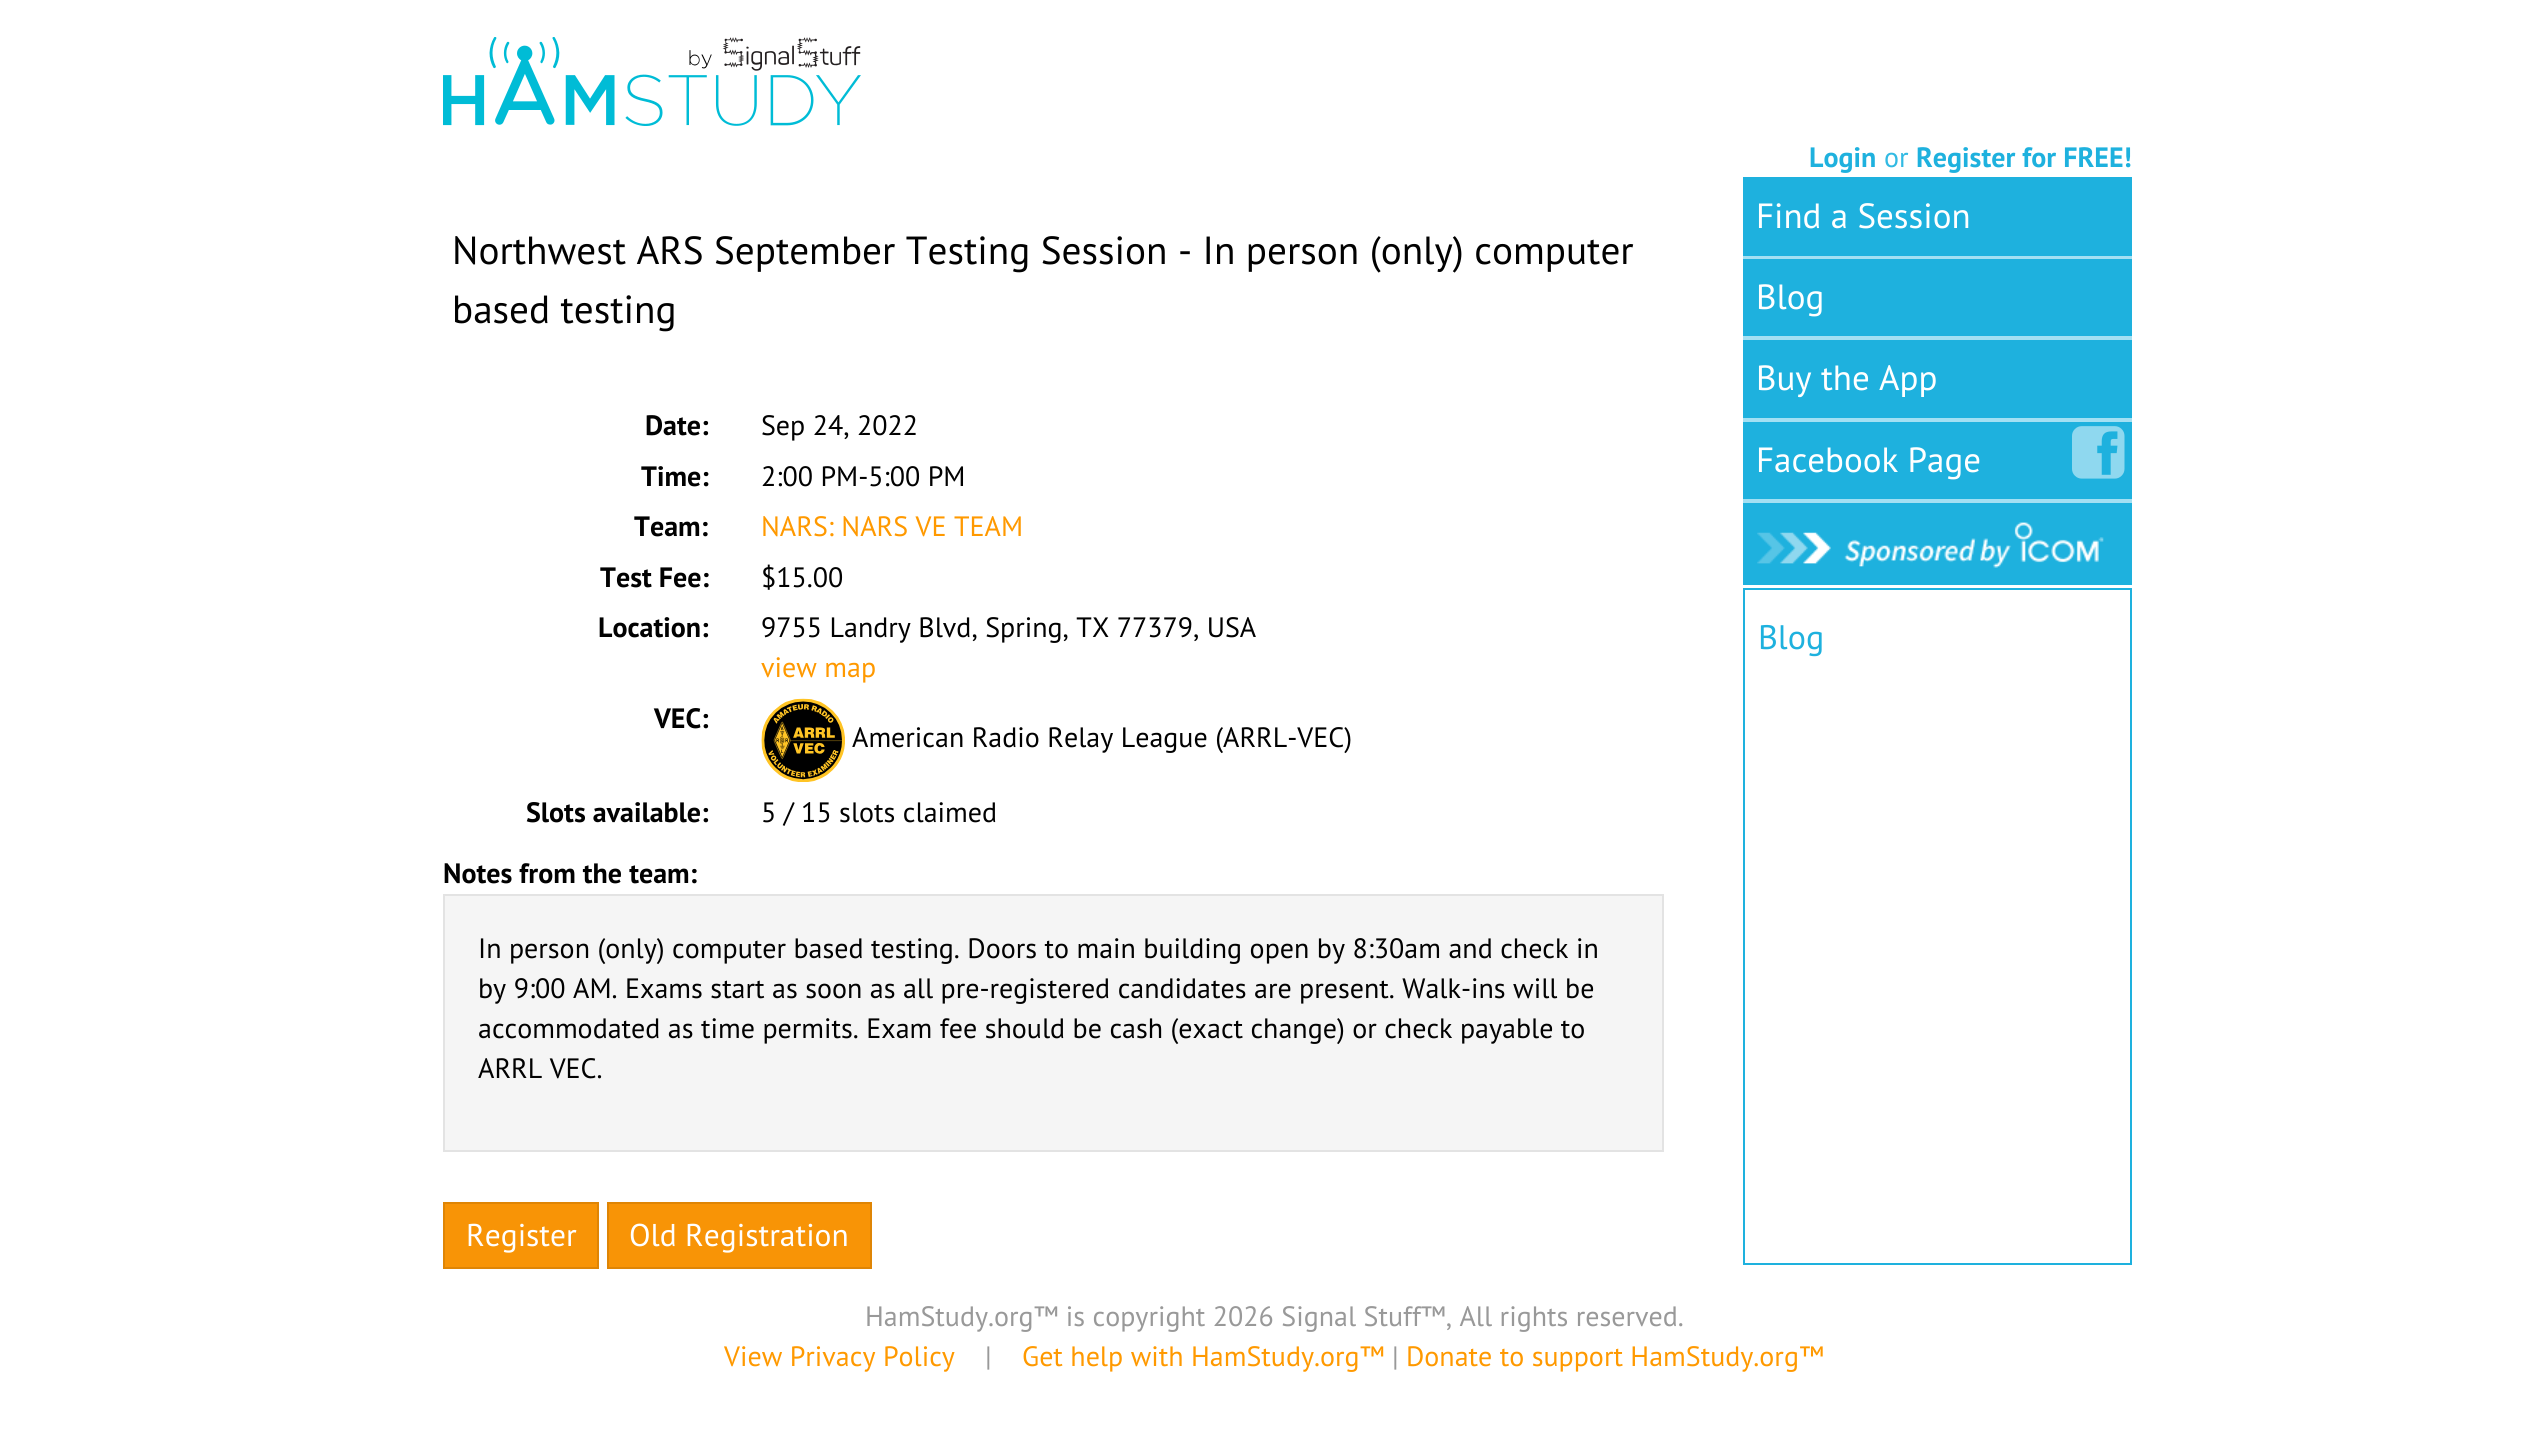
#include <cairo.h>
#include <math.h>
#include <stddef.h>

static cairo_t *c;
static void C(unsigned color){cairo_set_source_rgb(c, (color >> 16) / 255.0, (color >> 8 & 255) / 255.0, (color & 255) / 255.0);}
static void F(const char *family, double size, int italic, int bold){cairo_select_font_face(c, family, italic ? CAIRO_FONT_SLANT_ITALIC : CAIRO_FONT_SLANT_NORMAL,bold ? CAIRO_FONT_WEIGHT_BOLD : CAIRO_FONT_WEIGHT_NORMAL);cairo_set_font_size(c, size);}
static void T(double x, double y, const char *s){cairo_move_to(c, x, y);cairo_show_text(c, s);}
static void R(double x, double y, double w, double h){cairo_rectangle(c, x, y, w, h);cairo_fill(c);}
static void I(const char *path, double x, double y, double w, double h){cairo_surface_t *image = cairo_image_surface_create_from_png(path);cairo_save(c);cairo_set_source_surface(c, image, x, y);cairo_rectangle(c, x, y, w, h);cairo_fill(c);cairo_restore(c);cairo_surface_destroy(image);}
int main(void) {
cairo_surface_t *surface = cairo_image_surface_create(CAIRO_FORMAT_RGB24, 2547, 1451);
c = cairo_create(surface);
cairo_font_options_t *options = cairo_font_options_create();
cairo_font_options_set_hint_metrics(options, CAIRO_HINT_METRICS_OFF);
cairo_font_options_set_hint_style(options, CAIRO_HINT_STYLE_NONE);
cairo_set_font_options(c, options);
cairo_set_miter_limit(c, 4);
C(0xffffff);
cairo_paint(c);
I("1.png",443,37,418,89);
F("PT Sans",28,0,1);
C(0x1eb1de);
T(1809,167,"Login");
F("PT Sans",28,0,0);
C(0x32bae3);
T(1884,167,"or");
F("PT Sans",28,0,1);
C(0x1eb1de);
T(1916,167,"Register for FREE!");
F("PT Sans",39.2,0,0);
C(0x010101);
T(452,264,"Northwest ARS September Testing Session - In person (only) computer");
T(452,323,"based testing");
F("PT Sans",28,0,1);
T(645,435,"Date:");
F("PT Sans",28,0,0);
T(761,435,"Sep 24, 2022");
F("PT Sans",28,0,1);
T(641,486,"Time:");
F("PT Sans",28,0,0);
T(761,486,"2:00 PM-5:00 PM");
F("PT Sans",28,0,1);
T(634,536,"Team:");
F("PT Sans",28,0,0);
C(0xff9900);
T(761,536,"NARS: NARS VE TEAM");
F("PT Sans",28,0,1);
C(0x010101);
T(600,587,"Test Fee:");
F("PT Sans",28,0,0);
T(761,587,"$15.00");
F("PT Sans",28,0,1);
T(598,637,"Location:");
F("PT Sans",28,0,0);
T(761,637,"9755 Landry Blvd, Spring, TX 77379, USA");
C(0xff9900);
T(761,677,"view map");
F("PT Sans",28,0,1);
C(0x010101);
T(654,728,"VEC:");
I("2.png",761,698,84,84);
F("PT Sans",28,0,0);
T(852,747,"American Radio Relay League (ARRL-VEC)");
F("PT Sans",28,0,1);
T(526,822,"Slots available:");
F("PT Sans",28,0,0);
T(761,822,"5 / 15 slots claimed");
F("PT Sans",28,0,1);
T(443,883,"Notes from the team:");
C(0xf5f5f5);
cairo_rectangle(c,444,895,1219,256);
cairo_fill_preserve(c);
C(0xe3e3e3);
cairo_stroke(c);
F("PT Sans",28,0,0);
C(0x010101);
T(478,958,"In person (only) computer based testing. Doors to main building open by 8:30am and check in");
T(478,998,"by 9:00 AM. Exams start as soon as all pre-registered candidates are present. Walk-ins will be");
T(478,1038,"accommodated as time permits. Exam fee should be cash (exact change) or check payable to");
T(478,1078,"ARRL VEC.");
C(0xf89406);
cairo_rectangle(c,444,1203,154,65);
cairo_fill_preserve(c);
C(0xdf8505);
cairo_stroke(c);
F("PT Sans",31.5,0,0);
C(0xffffff);
T(466,1246,"Register");
C(0xf89406);
cairo_rectangle(c,608,1203,263,65);
cairo_fill_preserve(c);
C(0xdf8505);
cairo_stroke(c);
C(0xffffff);
T(629,1246,"Old Registration");
C(0x1eb1de);
R(1743,177,389,79);
C(0xa3e0f3);
R(1743,256,389,3);
F("PT Sans",35,0,0);
C(0xffffff);
T(1756,228,"Find a Session");
C(0x1eb1de);
R(1743,259,389,77);
C(0xa3e0f3);
R(1743,336,389,4);
C(0xffffff);
T(1756,309,"Blog");
C(0x1eb1de);
R(1743,340,389,78);
C(0xa3e0f3);
R(1743,418,389,4);
C(0xffffff);
T(1756,390,"Buy the App");
C(0x1eb1de);
R(1743,422,389,77);
C(0xa3e0f3);
R(1743,499,389,4);
C(0xffffff);
T(1756,472,"Facebook Page");
I("3.png",2072,426,53,53);
C(0x1eb1de);
R(1743,503,389,82);
I("4.png",1757,522,347,46);
cairo_rectangle(c,1744,589,387,675);
cairo_stroke(c);
F("PT Sans",34,0,0);
T(1758,649,"Blog");
F("PT Sans",28,0,0);
C(0x999999);
T(865,1326,"HamStudy.org™ is copyright 2026 Signal Stuff™, All rights reserved.");
C(0xff9900);
T(724,1366,"View Privacy Policy");
C(0x999999);
T(985,1366,"|");
C(0xff9900);
T(1022,1366,"Get help with HamStudy.org™");
C(0x999999);
T(1392,1366,"|");
C(0xff9900);
T(1406,1366,"Donate to support HamStudy.org™");
cairo_surface_write_to_png(surface, "o.png");
cairo_font_options_destroy(options);
cairo_destroy(c);
cairo_surface_destroy(surface);
return 0;
}
